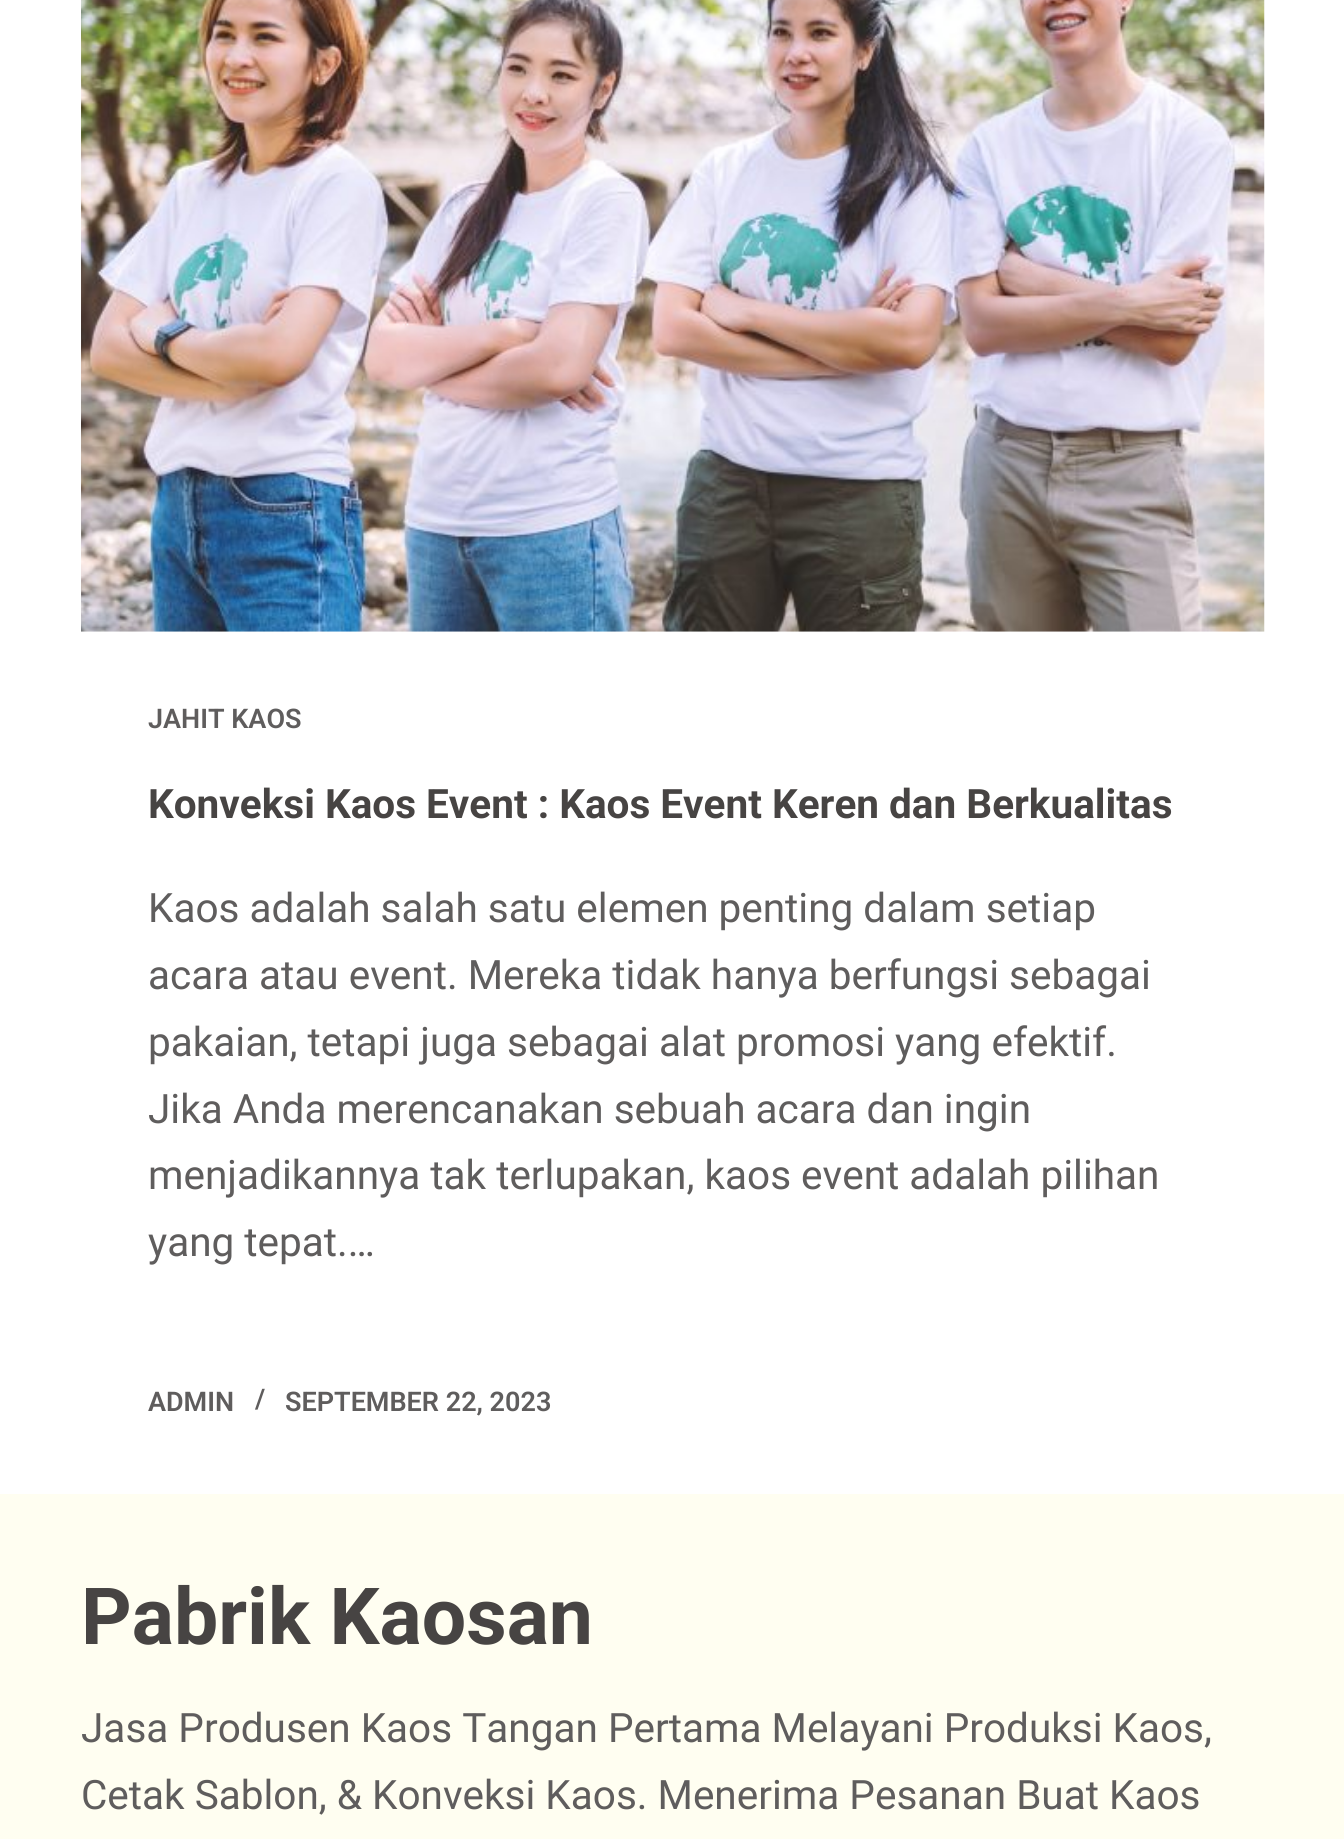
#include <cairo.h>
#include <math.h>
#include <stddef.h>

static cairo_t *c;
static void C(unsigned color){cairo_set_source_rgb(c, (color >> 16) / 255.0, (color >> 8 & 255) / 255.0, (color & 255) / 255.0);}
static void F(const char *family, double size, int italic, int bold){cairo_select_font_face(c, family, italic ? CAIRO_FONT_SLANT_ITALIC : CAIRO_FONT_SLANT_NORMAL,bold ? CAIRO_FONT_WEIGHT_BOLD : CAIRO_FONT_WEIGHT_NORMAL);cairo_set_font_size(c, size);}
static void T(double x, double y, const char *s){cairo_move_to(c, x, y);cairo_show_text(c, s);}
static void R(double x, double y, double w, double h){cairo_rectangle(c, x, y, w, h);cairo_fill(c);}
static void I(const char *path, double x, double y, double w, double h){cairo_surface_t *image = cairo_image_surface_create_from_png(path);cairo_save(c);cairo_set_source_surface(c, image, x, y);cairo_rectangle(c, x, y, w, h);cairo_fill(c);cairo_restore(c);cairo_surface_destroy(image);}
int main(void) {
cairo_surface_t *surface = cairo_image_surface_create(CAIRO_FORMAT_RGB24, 1344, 1839);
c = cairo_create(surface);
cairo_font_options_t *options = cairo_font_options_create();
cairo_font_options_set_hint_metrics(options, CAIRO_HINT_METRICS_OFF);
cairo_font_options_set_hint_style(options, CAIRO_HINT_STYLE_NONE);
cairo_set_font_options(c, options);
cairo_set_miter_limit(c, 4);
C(0xffffff);
cairo_paint(c);
I("1.png",81,0,1184,632);
F("Roboto SemiBold",27,0,0);
C(0x5f5d5d);
T(148,728,"JAHIT KAOS");
F("Roboto",40.5,0,1);
C(0x474443);
T(148,818,"Konveksi Kaos Event : Kaos Event Keren dan Berkualitas");
F("Roboto",40.5,0,0);
C(0x5f5d5d);
T(148,922,"Kaos adalah salah satu elemen penting dalam setiap");
T(148,989,"acara atau event. Mereka tidak hanya berfungsi sebagai");
T(148,1056,"pakaian, tetapi juga sebagai alat promosi yang efektif.");
T(148,1123,"Jika Anda merencanakan sebuah acara dan ingin");
T(148,1189,"menjadikannya tak terlupakan, kaos event adalah pilihan");
T(148,1256,"yang tepat.…");
F("Roboto SemiBold",27,0,0);
T(148,1411,"ADMIN");
T(255,1408,"/");
T(285,1411,"SEPTEMBER 22, 2023");
C(0xfffef1);
R(0,1494,1344,345);
F("Roboto",78.75,0,1);
C(0x474443);
T(81,1644,"Pabrik Kaosan");
F("Roboto",40.5,0,0);
C(0x5f5d5d);
T(81,1742,"Jasa Produsen Kaos Tangan Pertama Melayani Produksi Kaos,");
T(81,1809,"Cetak Sablon, & Konveksi Kaos. Menerima Pesanan Buat Kaos");
cairo_surface_write_to_png(surface, "o.png");
cairo_font_options_destroy(options);
cairo_destroy(c);
cairo_surface_destroy(surface);
return 0;
}
